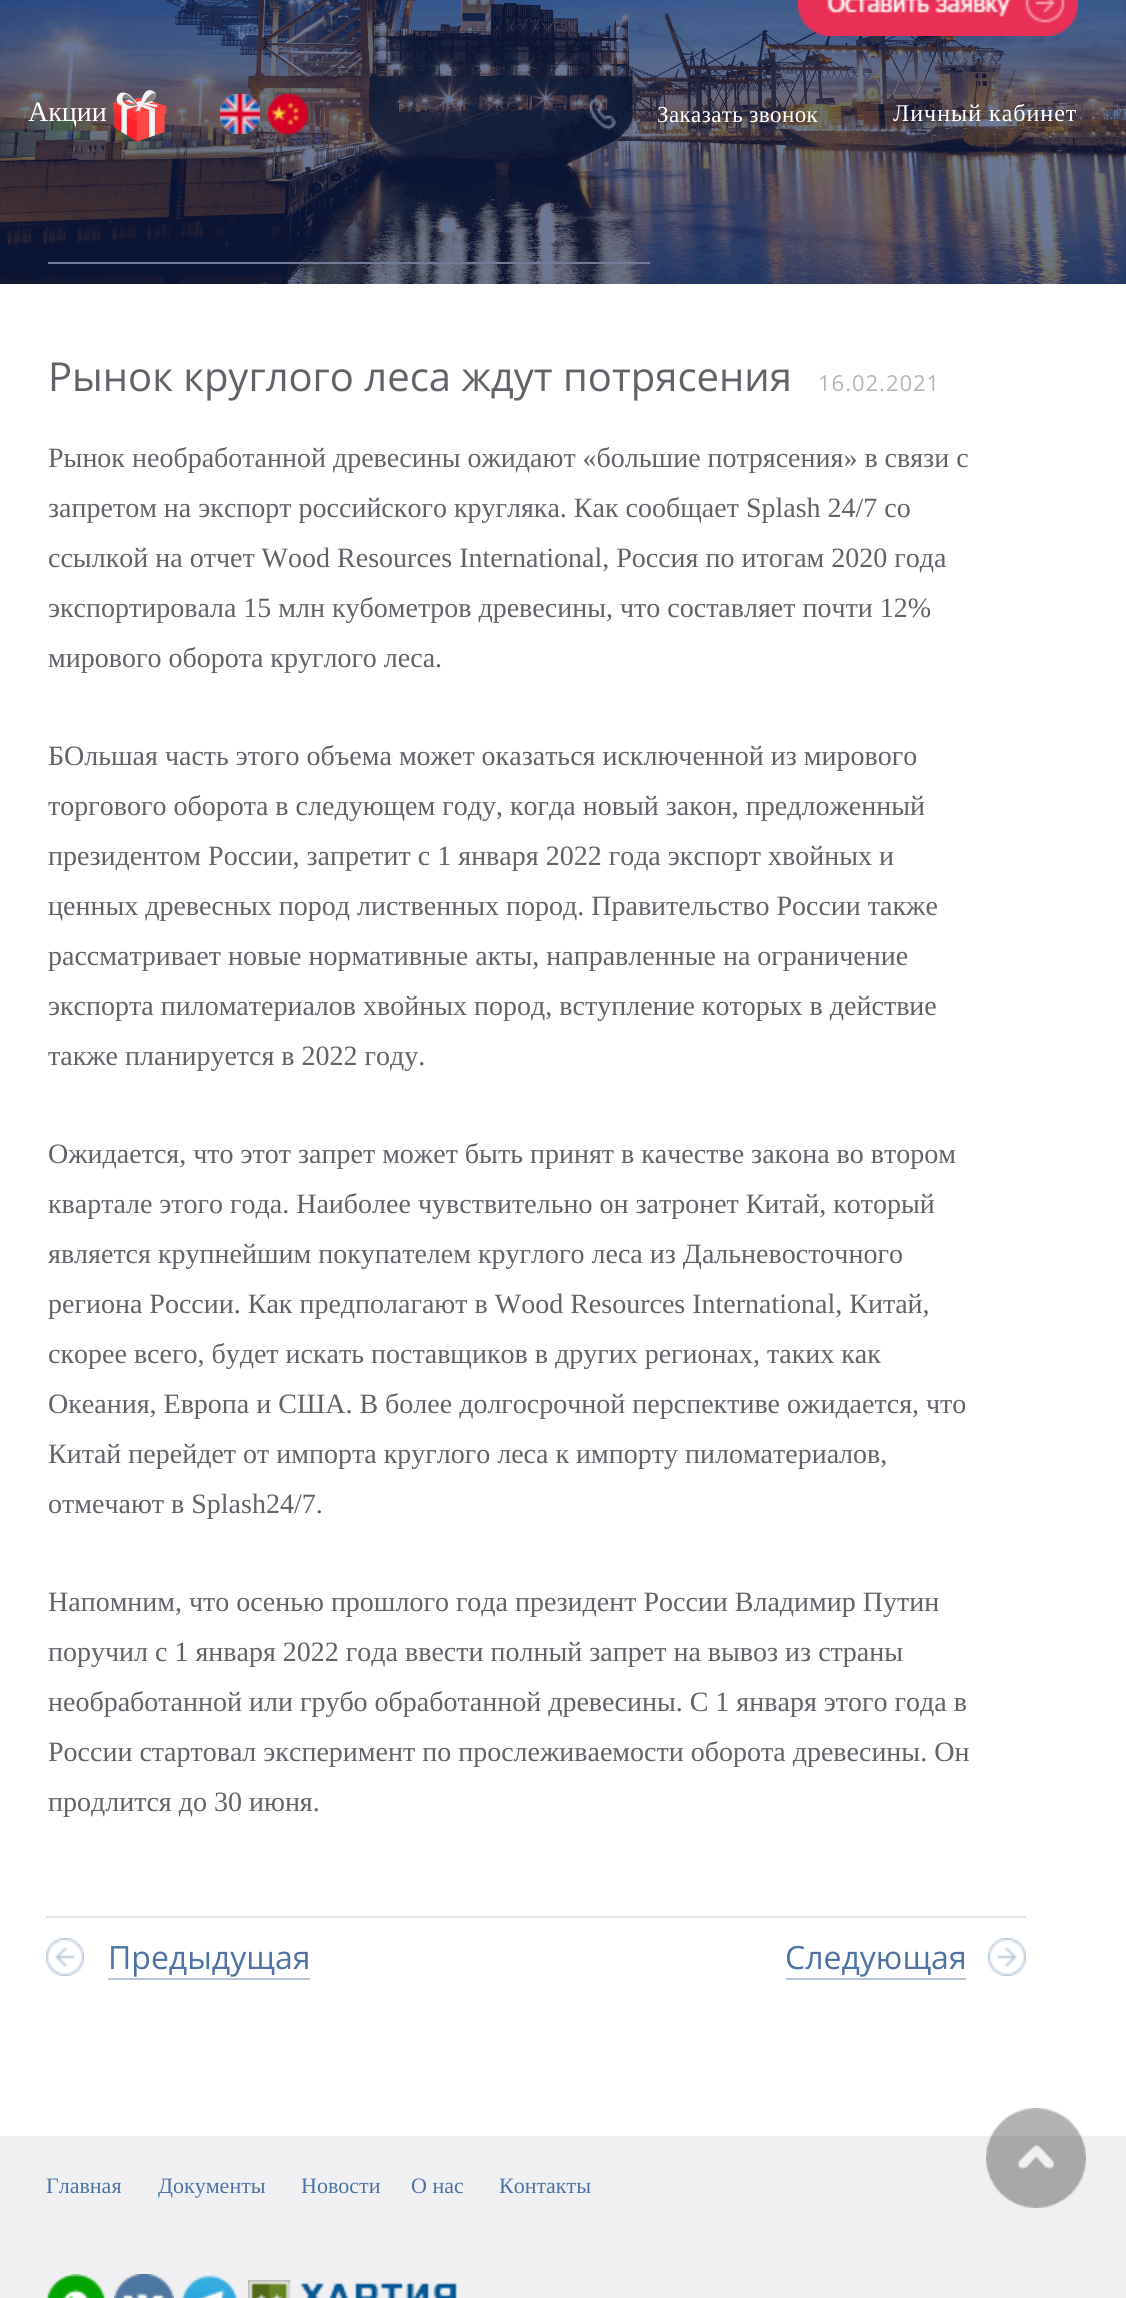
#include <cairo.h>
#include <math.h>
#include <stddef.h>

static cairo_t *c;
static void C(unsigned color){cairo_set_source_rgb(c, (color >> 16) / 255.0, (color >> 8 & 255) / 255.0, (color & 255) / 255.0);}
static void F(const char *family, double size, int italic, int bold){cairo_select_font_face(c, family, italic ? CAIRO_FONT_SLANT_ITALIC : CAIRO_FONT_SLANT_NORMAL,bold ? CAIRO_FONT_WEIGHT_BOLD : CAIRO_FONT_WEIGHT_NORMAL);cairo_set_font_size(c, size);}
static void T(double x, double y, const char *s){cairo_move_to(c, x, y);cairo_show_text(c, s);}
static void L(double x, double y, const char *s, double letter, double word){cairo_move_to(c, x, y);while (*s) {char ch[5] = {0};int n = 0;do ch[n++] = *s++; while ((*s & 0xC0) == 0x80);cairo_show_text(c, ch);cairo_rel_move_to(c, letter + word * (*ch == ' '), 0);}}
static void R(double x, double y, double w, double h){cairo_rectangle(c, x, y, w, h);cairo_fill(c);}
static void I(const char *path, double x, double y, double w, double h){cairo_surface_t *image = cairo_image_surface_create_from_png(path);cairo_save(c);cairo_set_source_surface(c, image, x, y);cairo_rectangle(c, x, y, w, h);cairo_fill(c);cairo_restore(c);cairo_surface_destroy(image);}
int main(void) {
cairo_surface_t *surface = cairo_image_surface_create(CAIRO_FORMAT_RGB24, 1126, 2298);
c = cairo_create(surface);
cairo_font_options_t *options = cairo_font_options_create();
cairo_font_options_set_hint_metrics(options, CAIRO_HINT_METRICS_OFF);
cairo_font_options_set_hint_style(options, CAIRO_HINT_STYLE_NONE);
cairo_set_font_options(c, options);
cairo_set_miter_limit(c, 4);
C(0xffffff);
cairo_paint(c);
I("1.png",0,0,1126,284);
I("2.png",798,0,280,36);
F("Liberation Serif",28,0,0);
C(0xffffff);
T(28,121,"Акции");
I("3.png",113,90,54,52);
I("4.png",220,94,40,40);
I("5.png",268,94,40,40);
F("Liberation Serif",24,0,0);
L(893,121,"Личный кабинет",1,0);
I("6.png",588,98,28,32);
F("Liberation Serif",23,0,0);
L(657,122,"Заказать звонок",.4,0);
C(0x727c96);
R(48,262,602,2);
F("Open Sans",40,0,0);
C(0x626369);
T(48,391,"Рынок круглого леса ждут потрясения");
F("Open Sans",22,0,0);
C(0xb5b6ba);
L(818,391,"16.02.2021",1,0);
F("Liberation Serif",28,0,0);
C(0x626369);
T(48,467,"Рынок необработанной древесины ожидают «большие потрясения» в связи с");
T(48,517,"запретом на экспорт российского кругляка. Как сообщает Splash 24/7 со");
T(48,567,"ссылкой на отчет Wood Resources International, Россия по итогам 2020 года");
T(48,617,"экспортировала 15 млн кубометров древесины, что составляет почти 12%");
T(48,667,"мирового оборота круглого леса.");
T(48,765,"БОльшая часть этого объема может оказаться исключенной из мирового");
T(48,815,"торгового оборота в следующем году, когда новый закон, предложенный");
T(48,865,"президентом России, запретит с 1 января 2022 года экспорт хвойных и");
T(48,915,"ценных древесных пород лиственных пород. Правительство России также");
T(48,965,"рассматривает новые нормативные акты, направленные на ограничение");
T(48,1015,"экспорта пиломатериалов хвойных пород, вступление которых в действие");
T(48,1065,"также планируется в 2022 году.");
T(48,1163,"Ожидается, что этот запрет может быть принят в качестве закона во втором");
T(48,1213,"квартале этого года. Наиболее чувствительно он затронет Китай, который");
T(48,1263,"является крупнейшим покупателем круглого леса из Дальневосточного");
T(48,1313,"региона России. Как предполагают в Wood Resources International, Китай,");
T(48,1363,"скорее всего, будет искать поставщиков в других регионах, таких как");
T(48,1413,"Океания, Европа и США. В более долгосрочной перспективе ожидается, что");
T(48,1463,"Китай перейдет от импорта круглого леса к импорту пиломатериалов,");
T(48,1513,"отмечают в Splash24/7.");
T(48,1611,"Напомним, что осенью прошлого года президент России Владимир Путин");
T(48,1661,"поручил с 1 января 2022 года ввести полный запрет на вывоз из страны");
T(48,1711,"необработанной или грубо обработанной древесины. С 1 января этого года в");
T(48,1761,"России стартовал эксперимент по прослеживаемости оборота древесины. Он");
T(48,1811,"продлится до 30 июня.");
C(0xe1e2e3);
R(46,1916,980,2);
I("7.png",46,1938,38,38);
F("Open Sans",32,0,0);
C(0x4e72a3);
T(108,1969,"Предыдущая");
C(0xb8c7da);
R(108,1978,202,2);
I("8.png",988,1938,38,38);
C(0x4e72a3);
T(785,1969,"Следующая");
C(0xb8c7da);
R(786,1978,180,2);
C(0xf0f0f2);
R(0,2136,1126,162);
F("Liberation Serif",22,0,0);
C(0x4e72a3);
T(46,2193,"Главная");
T(158,2193,"Документы");
T(301,2193,"Новости");
T(411,2193,"О нас");
T(499,2193,"Контакты");
I("9.png",46,2274,60,24);
I("10.png",114,2274,60,24);
I("11.png",181,2275,57,23);
I("12.png",248,2280,210,18);
I("13.png",986,2108,100,100);
cairo_surface_write_to_png(surface, "o.png");
cairo_font_options_destroy(options);
cairo_destroy(c);
cairo_surface_destroy(surface);
return 0;
}
